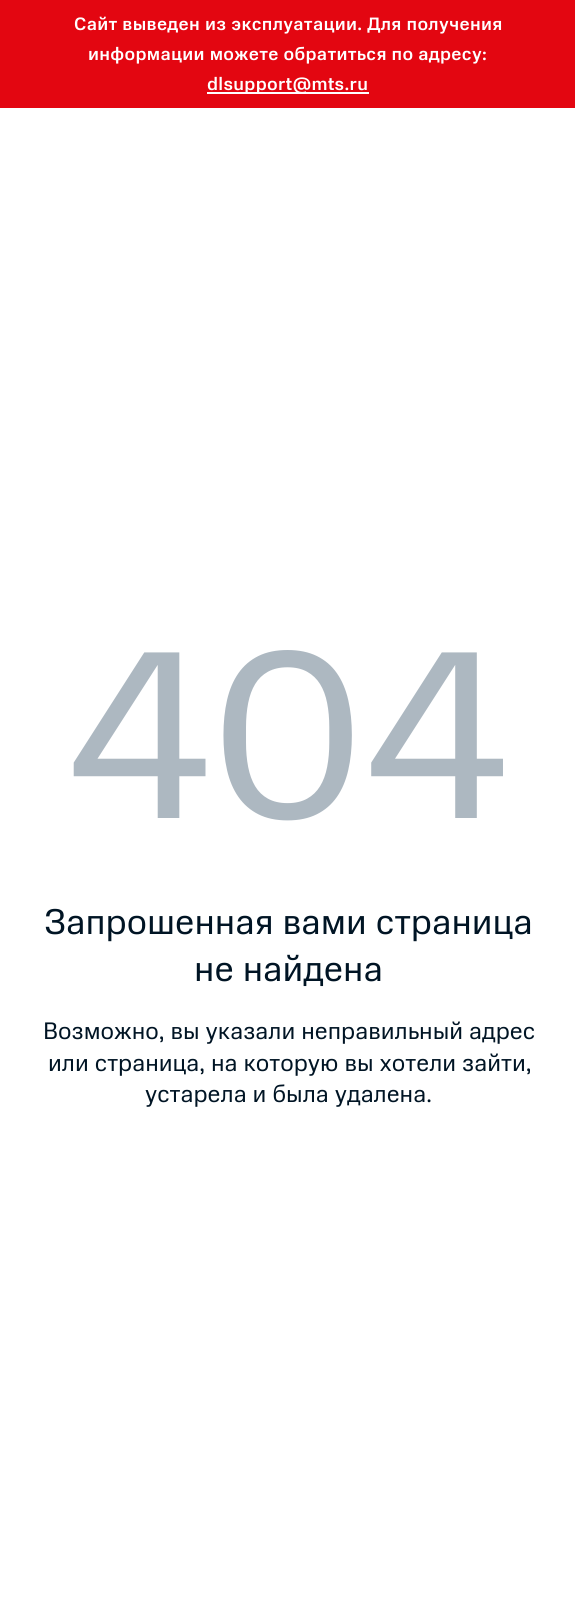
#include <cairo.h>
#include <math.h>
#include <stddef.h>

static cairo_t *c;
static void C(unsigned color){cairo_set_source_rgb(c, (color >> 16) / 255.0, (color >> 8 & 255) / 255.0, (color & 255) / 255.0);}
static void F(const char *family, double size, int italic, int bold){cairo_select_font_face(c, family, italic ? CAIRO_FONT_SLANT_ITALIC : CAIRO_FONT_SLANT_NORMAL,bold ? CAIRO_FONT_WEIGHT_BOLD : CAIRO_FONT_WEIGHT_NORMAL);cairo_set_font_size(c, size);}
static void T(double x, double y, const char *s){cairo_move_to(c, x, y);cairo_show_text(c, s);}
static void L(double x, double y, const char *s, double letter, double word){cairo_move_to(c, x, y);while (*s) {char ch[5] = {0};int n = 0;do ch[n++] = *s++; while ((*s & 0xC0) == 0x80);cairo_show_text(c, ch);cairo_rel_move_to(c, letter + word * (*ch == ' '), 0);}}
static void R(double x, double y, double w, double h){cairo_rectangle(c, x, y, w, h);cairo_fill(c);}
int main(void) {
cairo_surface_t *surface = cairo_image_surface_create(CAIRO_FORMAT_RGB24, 575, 1620);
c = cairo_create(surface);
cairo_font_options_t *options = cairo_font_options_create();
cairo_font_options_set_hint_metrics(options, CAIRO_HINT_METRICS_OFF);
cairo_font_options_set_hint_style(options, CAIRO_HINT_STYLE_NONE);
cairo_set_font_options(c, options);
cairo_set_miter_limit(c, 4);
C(0xffffff);
cairo_paint(c);
C(0xe30611);
R(0,0,575,108);
F("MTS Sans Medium",18,0,0);
C(0xffffff);
L(74,30,"Сайт выведен из эксплуатации. Для получения",.3,0);
L(88,60,"информации можете обратиться по адресу:",.3,0);
R(207,92,162,2);
L(207,90,"dlsupport@mts.ru",.3,0);
F("MTS Sans",240,0,0);
C(0xadb8c1);
T(67,818,"404");
F("MTS Sans",36,0,0);
C(0x001424);
T(44,934,"Запрошенная вами страница");
T(194,981,"не найдена");
F("MTS Sans",24,0,0);
T(43,1039,"Возможно, вы указали неправильный адрес");
T(48,1071,"или страница, на которую вы хотели зайти,");
T(145,1102,"устарела и была удалена.");
cairo_surface_write_to_png(surface, "o.png");
cairo_font_options_destroy(options);
cairo_destroy(c);
cairo_surface_destroy(surface);
return 0;
}
